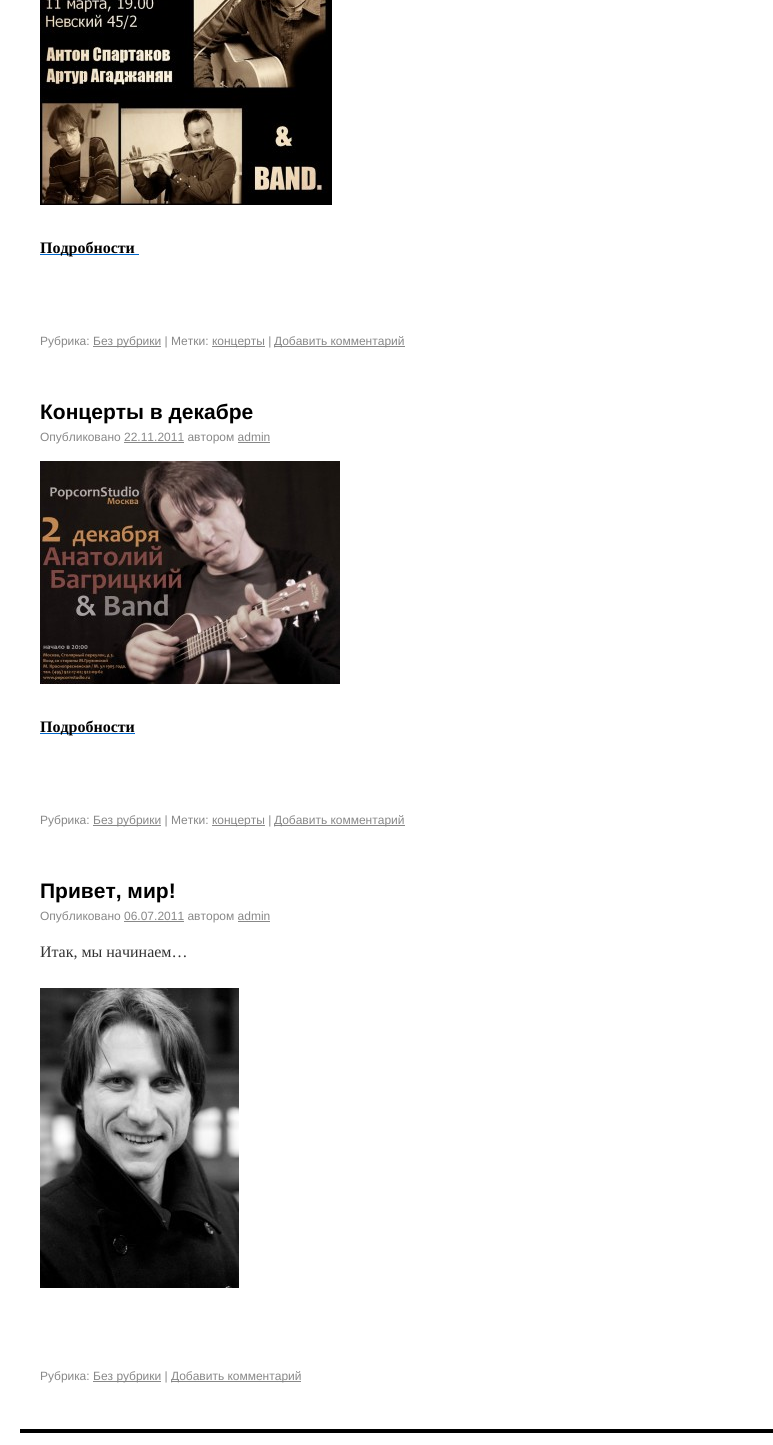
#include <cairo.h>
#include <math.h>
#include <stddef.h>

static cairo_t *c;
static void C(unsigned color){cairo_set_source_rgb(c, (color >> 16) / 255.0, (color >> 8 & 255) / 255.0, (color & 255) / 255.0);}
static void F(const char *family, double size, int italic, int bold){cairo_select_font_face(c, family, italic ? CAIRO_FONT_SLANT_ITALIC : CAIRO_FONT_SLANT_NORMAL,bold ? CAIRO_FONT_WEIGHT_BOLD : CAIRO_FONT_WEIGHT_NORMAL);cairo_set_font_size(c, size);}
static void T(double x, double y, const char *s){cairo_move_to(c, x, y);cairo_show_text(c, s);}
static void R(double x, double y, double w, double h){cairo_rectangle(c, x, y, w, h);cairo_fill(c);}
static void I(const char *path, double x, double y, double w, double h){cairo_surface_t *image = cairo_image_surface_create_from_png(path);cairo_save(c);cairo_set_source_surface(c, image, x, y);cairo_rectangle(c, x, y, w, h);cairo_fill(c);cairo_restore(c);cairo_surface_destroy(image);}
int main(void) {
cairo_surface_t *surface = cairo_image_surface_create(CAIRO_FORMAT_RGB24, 773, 1445);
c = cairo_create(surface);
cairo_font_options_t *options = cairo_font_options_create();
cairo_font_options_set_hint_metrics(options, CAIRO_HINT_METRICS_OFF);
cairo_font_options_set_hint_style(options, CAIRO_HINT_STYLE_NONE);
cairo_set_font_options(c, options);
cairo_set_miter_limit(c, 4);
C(0xffffff);
cairo_paint(c);
I("1.png",40,0,292,205);
C(0x0066cc);
R(40,254,99,1);
F("Liberation Serif",16,0,1);
C(0x000000);
T(40,253,"Подробности");
F("Liberation Sans",12,0,0);
C(0x888888);
T(40,345,"Рубрика:");
R(93,346,68,1);
T(93,345,"Без рубрики | Метки:");
R(212,346,53,1);
T(212,345,"концерты |");
R(274,346,131,1);
T(274,345,"Добавить комментарий");
F("Liberation Sans",21,0,1);
C(0x000000);
T(40,419,"Концерты в декабре");
F("Liberation Sans",12,0,0);
C(0x888888);
T(40,441,"Опубликовано 22.11.2011 автором admin");
R(124,442,60,1);
R(238,442,32,1);
I("2.png",40,461,300,223);
C(0x0066cc);
R(40,733,95,1);
F("Liberation Serif",16,0,1);
C(0x000000);
T(40,732,"Подробности");
F("Liberation Sans",12,0,0);
C(0x888888);
T(40,824,"Рубрика:");
R(93,825,68,1);
T(93,824,"Без рубрики | Метки:");
R(212,825,53,1);
T(212,824,"концерты |");
R(274,825,131,1);
T(274,824,"Добавить комментарий");
F("Liberation Sans",21,0,1);
C(0x000000);
T(40,898,"Привет, мир!");
F("Liberation Sans",12,0,0);
C(0x888888);
T(40,920,"Опубликовано 06.07.2011 автором admin");
R(124,921,60,1);
R(238,921,32,1);
F("Liberation Serif",16,0,0);
C(0x333333);
T(40,957,"Итак, мы начинаем…");
I("3.png",40,988,199,300);
F("Liberation Sans",12,0,0);
C(0x888888);
T(40,1380,"Рубрика:");
R(93,1381,68,1);
T(93,1380,"Без рубрики |");
R(171,1381,130,1);
T(171,1380,"Добавить комментарий");
C(0x000000);
R(20,1429,753,4);
cairo_surface_write_to_png(surface, "o.png");
cairo_font_options_destroy(options);
cairo_destroy(c);
cairo_surface_destroy(surface);
return 0;
}
